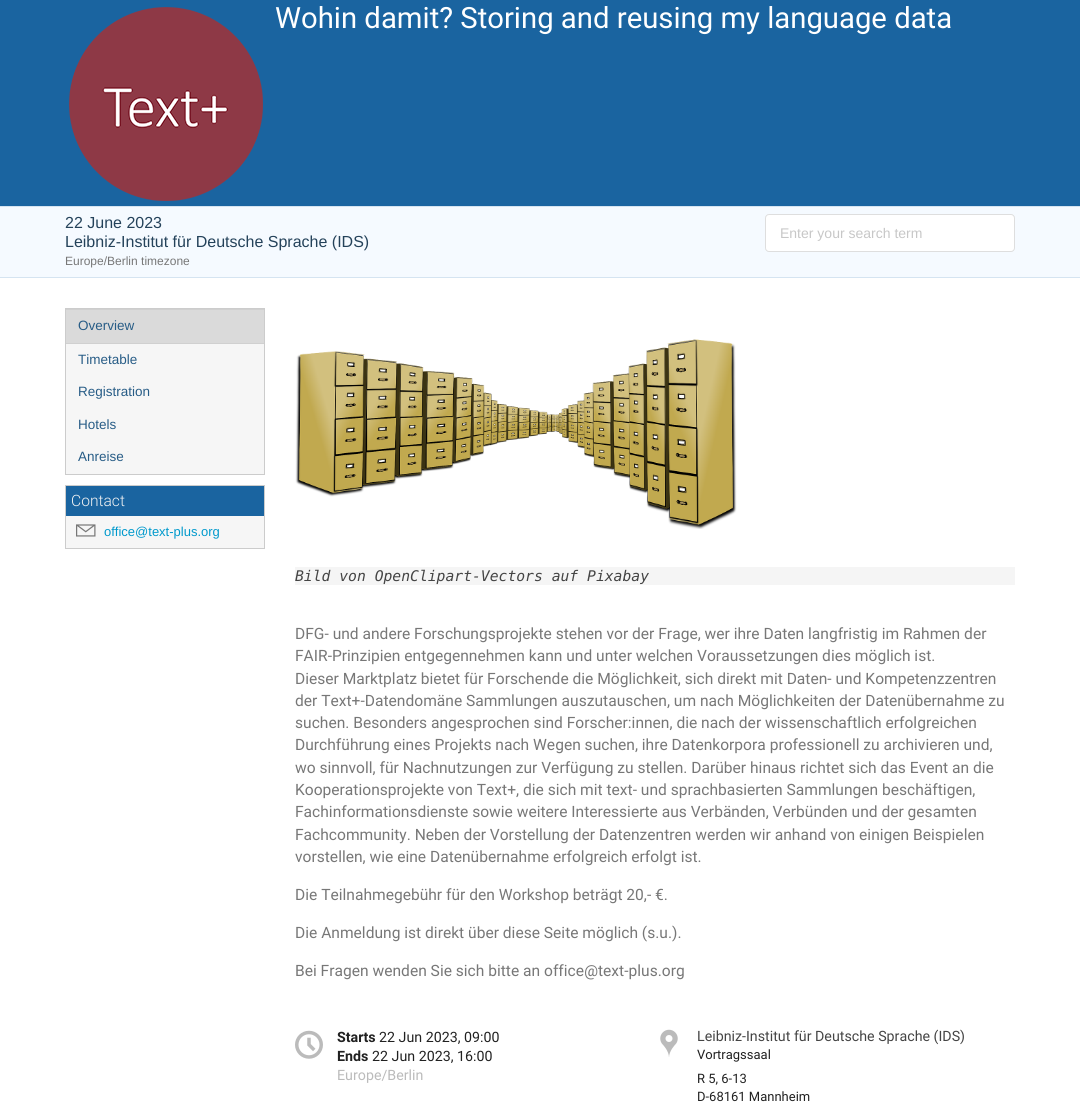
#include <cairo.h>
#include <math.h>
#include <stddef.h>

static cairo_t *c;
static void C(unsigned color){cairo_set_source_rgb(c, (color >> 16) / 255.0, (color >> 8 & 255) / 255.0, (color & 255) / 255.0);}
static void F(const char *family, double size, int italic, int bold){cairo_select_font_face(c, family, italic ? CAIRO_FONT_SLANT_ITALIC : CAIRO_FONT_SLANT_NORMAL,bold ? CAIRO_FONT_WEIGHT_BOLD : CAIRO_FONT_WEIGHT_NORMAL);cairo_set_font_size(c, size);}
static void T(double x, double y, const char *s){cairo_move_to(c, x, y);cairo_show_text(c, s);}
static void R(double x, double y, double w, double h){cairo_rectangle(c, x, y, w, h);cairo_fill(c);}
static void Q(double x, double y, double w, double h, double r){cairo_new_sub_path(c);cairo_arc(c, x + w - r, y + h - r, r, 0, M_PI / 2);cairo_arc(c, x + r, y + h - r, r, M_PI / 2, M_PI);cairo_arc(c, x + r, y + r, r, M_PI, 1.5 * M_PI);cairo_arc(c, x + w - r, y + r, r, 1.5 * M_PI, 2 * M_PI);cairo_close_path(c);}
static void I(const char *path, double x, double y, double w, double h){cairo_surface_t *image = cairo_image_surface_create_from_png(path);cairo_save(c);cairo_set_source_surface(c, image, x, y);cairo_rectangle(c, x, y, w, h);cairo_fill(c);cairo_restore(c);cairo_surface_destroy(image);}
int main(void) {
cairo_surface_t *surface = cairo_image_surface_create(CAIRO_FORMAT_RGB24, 1080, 1114);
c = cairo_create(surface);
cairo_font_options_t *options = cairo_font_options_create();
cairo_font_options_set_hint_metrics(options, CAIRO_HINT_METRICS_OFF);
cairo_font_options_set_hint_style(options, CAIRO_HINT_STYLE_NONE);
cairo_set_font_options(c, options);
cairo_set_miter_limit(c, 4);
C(0xffffff);
cairo_paint(c);
C(0x1a64a0);
R(0,0,1080,206);
I("1.png",69,7,194,194);
F("Roboto",29.3,0,0);
C(0xffffff);
T(275,28,"Wohin damit? Storing and reusing my language data");
C(0xf5faff);
R(0,207,1080,70);
C(0xd5e4f1);
R(0,206,1080,1);
R(0,277,1080,1);
F("Liberation Sans",16,0,0);
C(0x24425a);
T(65,228,"22 June 2023");
T(65,247,"Leibniz-Institut für Deutsche Sprache (IDS)");
F("Liberation Sans",12,0,0);
C(0x777777);
T(65,265,"Europe/Berlin timezone");
C(0xffffff);
Q(765,214,250,38,4);
cairo_fill(c);
Q(765.5,214.5,249,37,3.5);
cairo_set_source_rgba(c,0.133,0.141,0.149,0.15);
cairo_set_line_width(c,1);
cairo_stroke(c);
F("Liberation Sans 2",14,0,0);
C(0xc7c7c7);
T(780,238,"Enter your search term");
C(0xf6f6f6);
R(66,344,198,130);
cairo_rectangle(c,65.5,308.5,199,166);
C(0xcccccc);
cairo_stroke(c);
C(0xdadada);
R(66,310,198,33);
C(0xd0d0d0);
R(66,309,198,1);
R(66,343,198,1);
F("Liberation Sans 2",13.5,0,0);
C(0x275c86);
T(78,330,"Overview");
T(78,364,"Timetable");
T(78,396,"Registration");
T(78,429,"Hotels");
T(78,461,"Anreise");
C(0xf6f6f6);
R(66,516,198,32);
cairo_rectangle(c,65.5,485.5,199,63);
C(0xcccccc);
cairo_stroke(c);
C(0x1a64a0);
R(66,486,198,30);
F("Roboto Light",15.6,0,0);
C(0xf3f3f3);
T(71,506,"Contact");
I("2.png",76,524,20,13);
F("Liberation Sans",13,0,0);
C(0x0099cc);
T(104,536,"office@text-plus.org");
I("3.png",295,339,442,190);
C(0xf5f5f5);
R(295,567,720,18);
F("DejaVu Sans Mono",14.7,1,0);
C(0x444444);
T(295,581,"Bild von OpenClipart-Vectors auf Pixabay");
F("Roboto",15.6,0,0);
C(0x777777);
T(295,639,"DFG- und andere Forschungsprojekte stehen vor der Frage, wer ihre Daten langfristig im Rahmen der");
T(295,661,"FAIR-Prinzipien entgegennehmen kann und unter welchen Voraussetzungen dies möglich ist.");
T(295,684,"Dieser Marktplatz bietet für Forschende die Möglichkeit, sich direkt mit Daten- und Kompetenzzentren");
T(295,706,"der Text+-Datendomäne Sammlungen auszutauschen, um nach Möglichkeiten der Datenübernahme zu");
T(295,728,"suchen. Besonders angesprochen sind Forscher:innen, die nach der wissenschaftlich erfolgreichen");
T(295,750,"Durchführung eines Projekts nach Wegen suchen, ihre Datenkorpora professionell zu archivieren und,");
T(295,773,"wo sinnvoll, für Nachnutzungen zur Verfügung zu stellen. Darüber hinaus richtet sich das Event an die");
T(295,795,"Kooperationsprojekte von Text+, die sich mit text- und sprachbasierten Sammlungen beschäftigen,");
T(295,817,"Fachinformationsdienste sowie weitere Interessierte aus Verbänden, Verbünden und der gesamten");
T(295,840,"Fachcommunity. Neben der Vorstellung der Datenzentren werden wir anhand von einigen Beispielen");
T(295,862,"vorstellen, wie eine Datenübernahme erfolgreich erfolgt ist.");
T(295,900,"Die Teilnahmegebühr für den Workshop beträgt 20,- €.");
T(295,938,"Die Anmeldung ist direkt über diese Seite möglich (s.u.).");
T(295,976,"Bei Fragen wenden Sie sich bitte an office@text-plus.org");
I("4.png",295,1030,28,29);
F("Roboto",14.25,0,1);
C(0x212121);
T(337,1042,"Starts");
F("Roboto",14.25,0,0);
T(379,1042,"22 Jun 2023, 09:00");
F("Roboto",14.25,0,1);
T(337,1061,"Ends");
F("Roboto",14.25,0,0);
T(372,1061,"22 Jun 2023, 16:00");
C(0xbbbbbb);
T(337,1080,"Europe/Berlin");
I("5.png",660,1029,18,28);
C(0x444444);
T(697,1041,"Leibniz-Institut für Deutsche Sprache (IDS)");
F("Roboto",13,0,0);
C(0x212121);
T(697,1059,"Vortragssaal");
T(697,1083,"R 5, 6-13");
T(697,1101,"D-68161 Mannheim");
cairo_surface_write_to_png(surface, "o.png");
cairo_font_options_destroy(options);
cairo_destroy(c);
cairo_surface_destroy(surface);
return 0;
}
